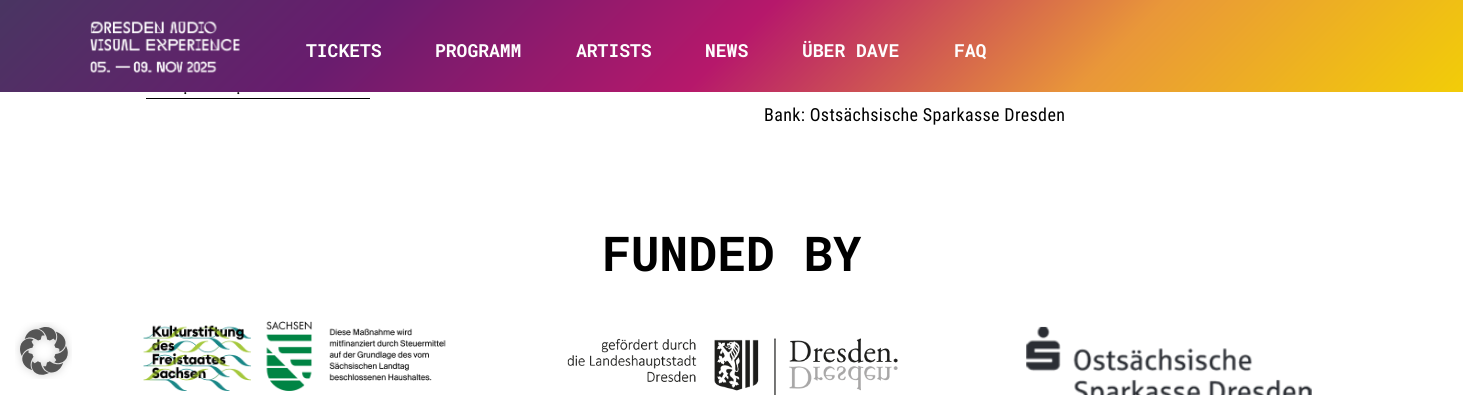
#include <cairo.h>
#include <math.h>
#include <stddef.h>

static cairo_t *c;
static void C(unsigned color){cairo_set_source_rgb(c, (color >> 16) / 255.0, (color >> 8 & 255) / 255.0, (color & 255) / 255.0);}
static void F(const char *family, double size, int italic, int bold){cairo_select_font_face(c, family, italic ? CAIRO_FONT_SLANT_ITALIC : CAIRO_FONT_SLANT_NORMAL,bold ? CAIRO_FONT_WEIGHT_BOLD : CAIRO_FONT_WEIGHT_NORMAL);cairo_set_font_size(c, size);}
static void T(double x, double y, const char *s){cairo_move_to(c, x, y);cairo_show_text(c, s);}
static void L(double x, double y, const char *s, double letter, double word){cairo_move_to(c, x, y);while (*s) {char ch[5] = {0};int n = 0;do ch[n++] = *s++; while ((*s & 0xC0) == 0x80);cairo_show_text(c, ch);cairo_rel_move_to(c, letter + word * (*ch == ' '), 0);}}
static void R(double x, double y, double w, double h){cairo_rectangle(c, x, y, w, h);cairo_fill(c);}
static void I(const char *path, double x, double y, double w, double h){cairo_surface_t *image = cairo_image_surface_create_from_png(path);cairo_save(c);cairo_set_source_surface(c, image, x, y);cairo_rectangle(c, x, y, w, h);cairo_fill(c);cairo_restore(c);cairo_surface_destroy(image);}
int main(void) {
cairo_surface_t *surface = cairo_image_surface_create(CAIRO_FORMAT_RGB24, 1463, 395);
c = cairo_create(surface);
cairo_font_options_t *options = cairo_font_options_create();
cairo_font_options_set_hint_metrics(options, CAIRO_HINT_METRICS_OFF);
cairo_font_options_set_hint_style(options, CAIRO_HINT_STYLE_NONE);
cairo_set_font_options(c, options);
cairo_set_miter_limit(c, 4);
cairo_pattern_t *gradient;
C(0xffffff);
cairo_paint(c);
gradient = cairo_pattern_create_linear(343,-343,1120,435);
cairo_pattern_add_color_stop_rgba(gradient,0,0.286,0.208,0.384,1);
cairo_pattern_add_color_stop_rgba(gradient,.25,0.412,0.11,0.431,1);
cairo_pattern_add_color_stop_rgba(gradient,.5,0.714,0.094,0.42,1);
cairo_pattern_add_color_stop_rgba(gradient,.75,0.914,0.592,0.224,1);
cairo_pattern_add_color_stop_rgba(gradient,1,0.949,0.804,0.031,1);
cairo_set_source(c,gradient);
cairo_pattern_destroy(gradient);
R(0,0,1463,92);
I("1.png",90,21,150,52);
F("Roboto Mono",18,0,1);
C(0xfefefe);
T(306,57,"TICKETS");
T(435,57,"PROGRAMM");
T(576,57,"ARTISTS");
T(705,57,"NEWS");
T(802,57,"ÜBER DAVE");
T(954,57,"FAQ");
F("Roboto Condensed",18,0,0);
C(0x000000);
L(183,94,".",.35,0);
R(146,98,224,1);
L(236,94,".",.35,0);
L(764,121,"Bank: Ostsächsische Sparkasse Dresden",.35,0);
F("Roboto Mono",48,0,1);
T(602,271,"FUNDED BY");
I("2.png",143,321,303,70);
I("3.png",567,338,331,57);
I("4.png",1026,326,286,69);
I("5.png",15,322,57,57);
cairo_surface_write_to_png(surface, "o.png");
cairo_font_options_destroy(options);
cairo_destroy(c);
cairo_surface_destroy(surface);
return 0;
}
